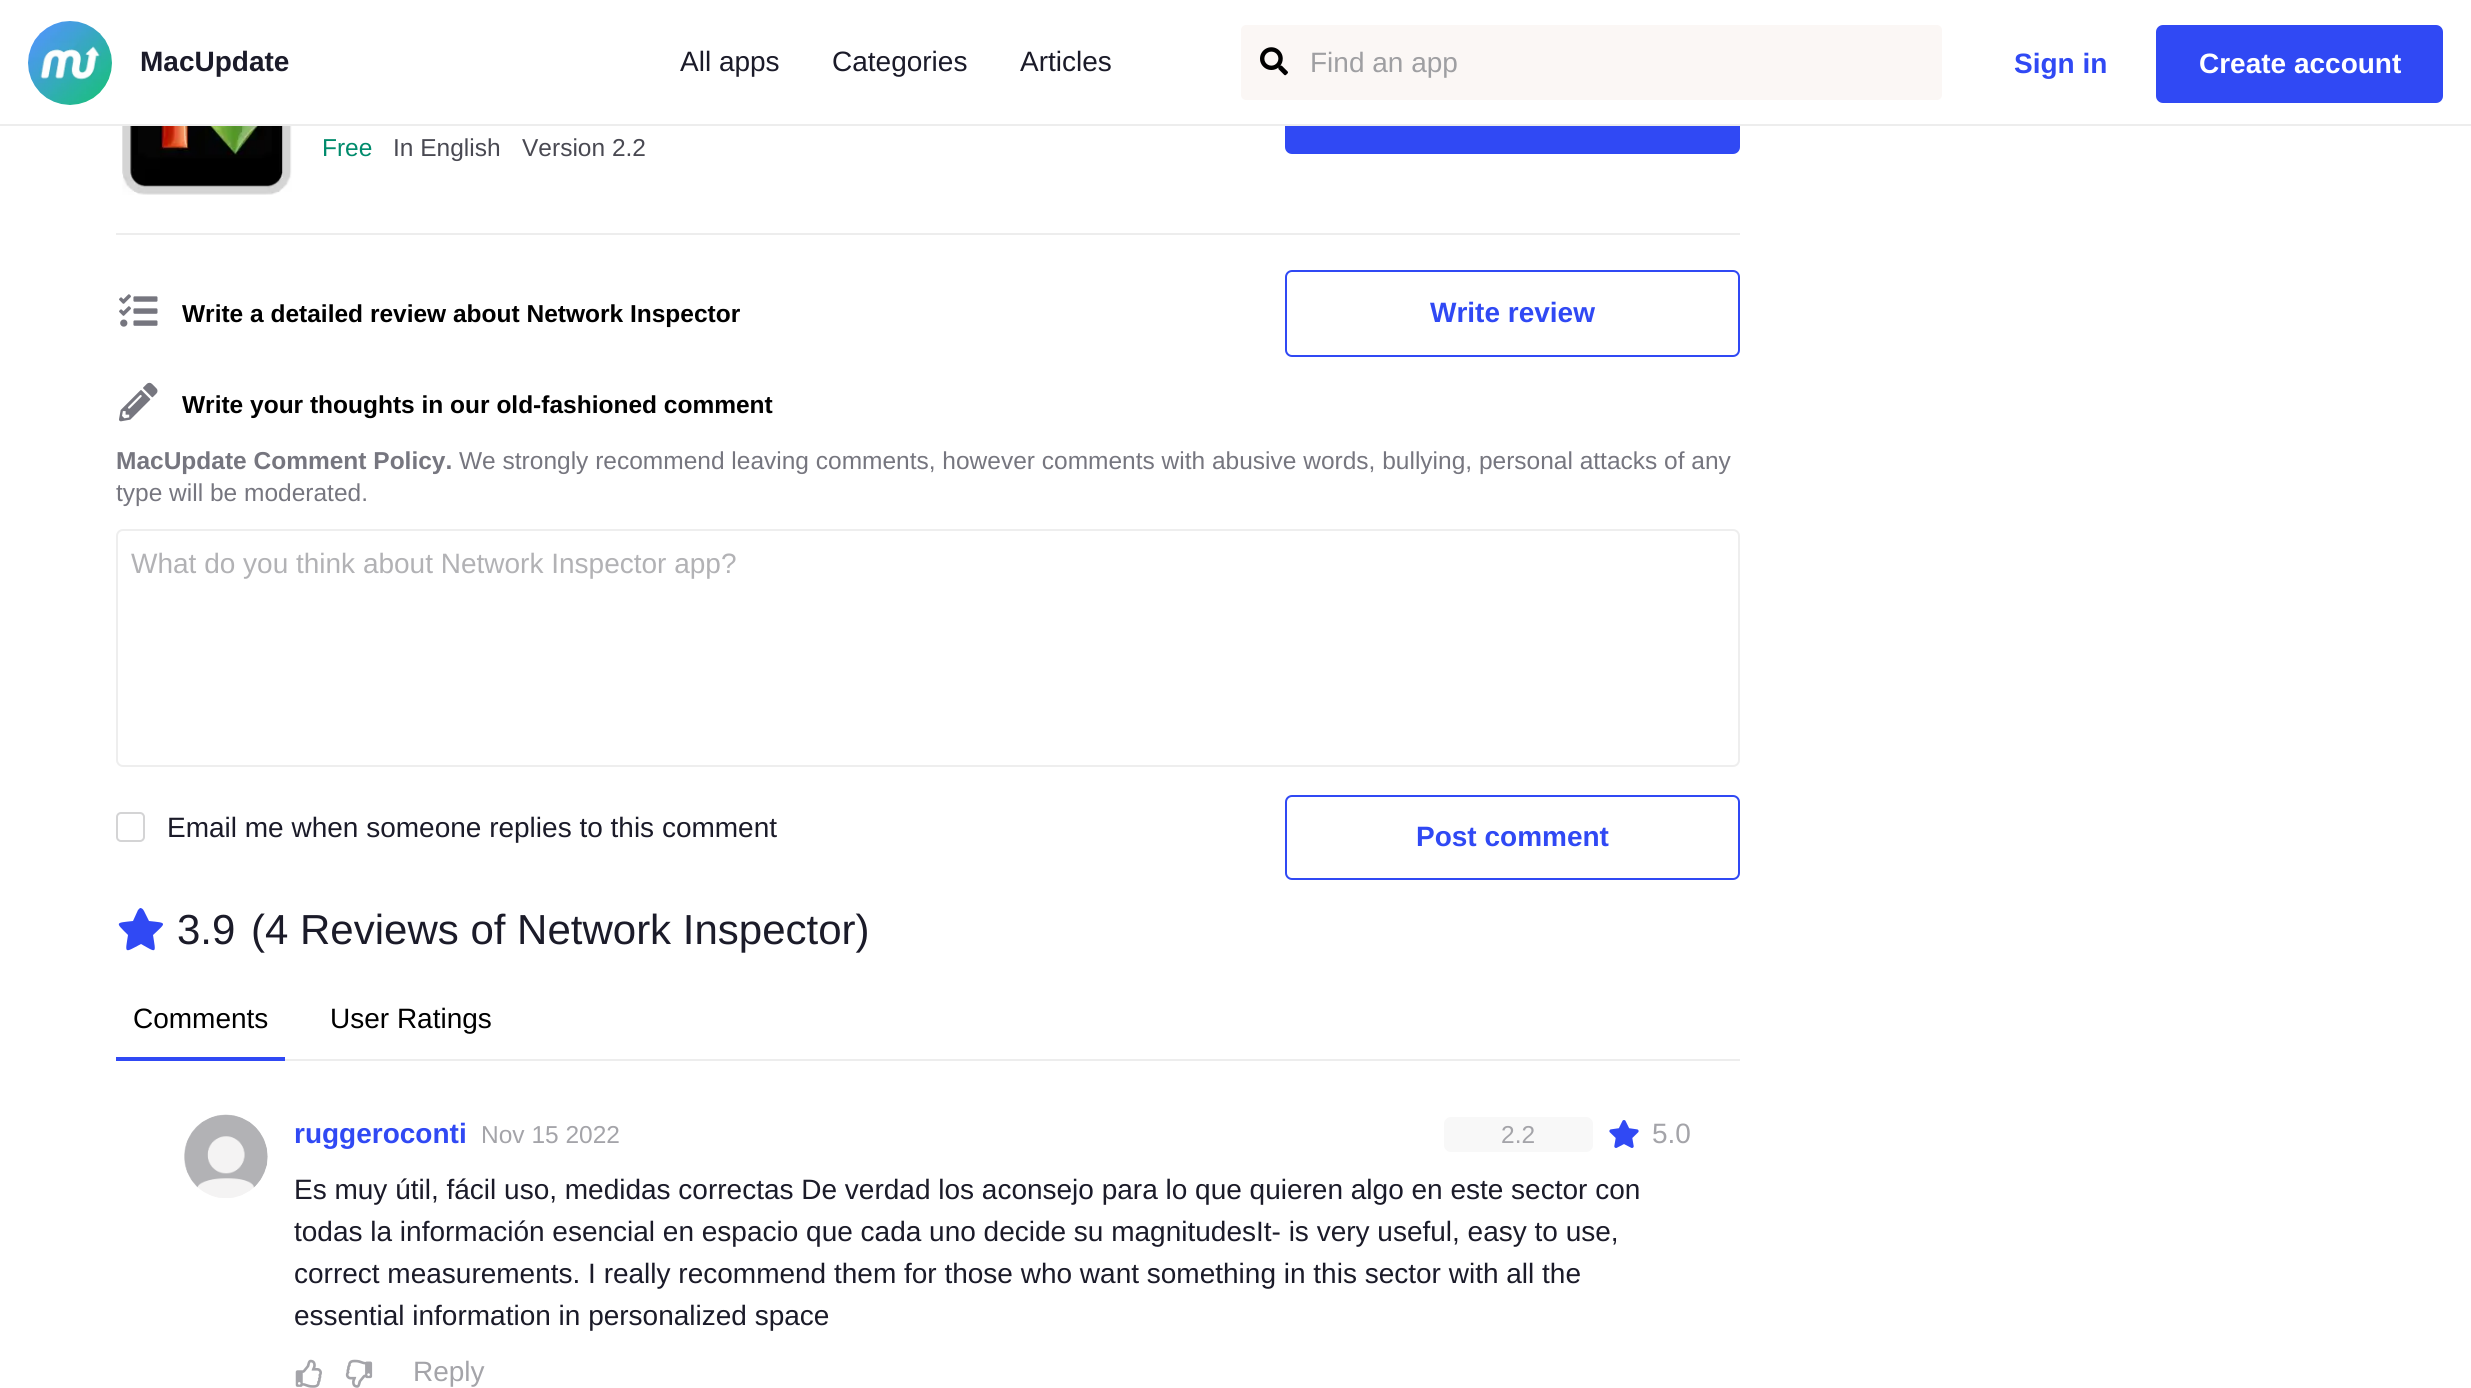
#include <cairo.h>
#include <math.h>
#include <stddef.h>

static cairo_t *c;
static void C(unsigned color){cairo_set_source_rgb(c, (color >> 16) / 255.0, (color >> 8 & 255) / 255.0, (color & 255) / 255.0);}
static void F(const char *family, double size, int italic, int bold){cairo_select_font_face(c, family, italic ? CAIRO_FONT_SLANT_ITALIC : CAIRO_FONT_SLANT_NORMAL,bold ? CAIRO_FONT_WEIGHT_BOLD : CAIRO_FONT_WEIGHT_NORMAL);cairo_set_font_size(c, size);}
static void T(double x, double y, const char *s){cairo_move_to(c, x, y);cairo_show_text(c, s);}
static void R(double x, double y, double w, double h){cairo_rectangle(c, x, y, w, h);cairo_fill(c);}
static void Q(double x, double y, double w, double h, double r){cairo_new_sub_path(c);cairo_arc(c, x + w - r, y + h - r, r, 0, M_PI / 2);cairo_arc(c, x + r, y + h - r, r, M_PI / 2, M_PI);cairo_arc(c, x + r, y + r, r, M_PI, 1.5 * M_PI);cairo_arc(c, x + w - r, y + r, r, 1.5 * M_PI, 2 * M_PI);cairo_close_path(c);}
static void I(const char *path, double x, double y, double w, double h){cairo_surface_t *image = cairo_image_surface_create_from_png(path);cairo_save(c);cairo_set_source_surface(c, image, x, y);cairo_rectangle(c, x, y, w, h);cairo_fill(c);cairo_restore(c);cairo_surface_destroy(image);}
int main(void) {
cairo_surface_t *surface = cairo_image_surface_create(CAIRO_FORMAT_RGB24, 2471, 1388);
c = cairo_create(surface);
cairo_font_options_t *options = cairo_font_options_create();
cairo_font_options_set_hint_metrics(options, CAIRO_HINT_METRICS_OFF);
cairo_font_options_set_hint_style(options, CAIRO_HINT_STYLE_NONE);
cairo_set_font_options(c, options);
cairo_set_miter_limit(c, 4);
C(0xffffff);
cairo_paint(c);
C(0x3049f4);
Q(1285,72,455,82,7);
cairo_fill(c);
C(0xffffff);
R(1285,72,455,52);
C(0xededed);
R(0,124,2471,2);
I("1.png",28,21,84,84);
F("Liberation Sans",28,0,1);
C(0x1b1b29);
T(140,71,"MacUpdate");
F("Liberation Sans",28,0,0);
T(680,71,"All apps");
T(832,71,"Categories");
T(1020,71,"Articles");
C(0xfbf7f5);
Q(1240,24,703,77,6);
cairo_fill_preserve(c);
C(0xffffff);
cairo_stroke(c);
I("2.png",1260,47,28,29);
C(0x9f9fa2);
T(1310,72,"Find an app");
F("Liberation Sans",28,0,1);
C(0x3049f4);
T(2014,73,"Sign in");
Q(2156,25,287,78,7);
cairo_fill(c);
C(0xffffff);
T(2199,73,"Create account");
C(0xededed);
R(116,233,1624,2);
I("3.png",122,126,170,69);
F("Liberation Sans",24.5,0,0);
C(0x008b6c);
T(322,156,"Free");
C(0x494952);
T(393,156,"In English");
T(522,156,"Version 2.2");
I("4.png",119,294,39,33);
F("Liberation Sans",24.5,0,1);
C(0x000000);
T(182,322,"Write a detailed review about Network Inspector");
Q(1286,271,453,85,6);
C(0x3049f4);
cairo_stroke(c);
F("Liberation Sans",28,0,1);
T(1430,322,"Write review");
I("5.png",119,382,39,40);
F("Liberation Sans",24.5,0,1);
C(0x000000);
T(182,413,"Write your thoughts in our old-fashioned comment");
C(0x76767f);
T(116,469,"MacUpdate Comment Policy.");
F("Liberation Sans",24.5,0,0);
T(459,469,"We strongly recommend leaving comments, however comments with abusive words, bullying, personal attacks of any");
T(116,501,"type will be moderated.");
Q(117,530,1622,236,6);
C(0xeeeeee);
cairo_stroke(c);
F("Liberation Sans",28,0,0);
C(0xb2b2b5);
T(131,573,"What do you think about Network Inspector app?");
Q(117,813,27,28,4);
C(0xd4d4d5);
cairo_stroke(c);
C(0x1b1b29);
T(167,837,"Email me when someone replies to this comment");
Q(1286,796,453,83,6);
C(0x3049f4);
cairo_stroke(c);
F("Liberation Sans",28,0,1);
T(1416,846,"Post comment");
cairo_new_path(c);
cairo_move_to(c,138,910);
cairo_line_to(c,133,921);
cairo_curve_to(c,115,923,115,922,128,935);
cairo_curve_to(c,125,954,124,953,141,944);
cairo_curve_to(c,157,953,156,954,153,935);
cairo_curve_to(c,167,922,167,923,149,921);
cairo_line_to(c,145,913);
cairo_curve_to(c,144,911,143,908,140,908);
cairo_close_path(c);
cairo_fill(c);
F("Liberation Sans",42,0,0);
C(0x1b1b29);
T(177,944,"3.9");
T(251,944,"(4 Reviews of Network Inspector)");
C(0xededed);
R(285,1059,1455,2);
F("Liberation Sans",28,0,0);
C(0x000000);
T(133,1028,"Comments");
C(0x3049f4);
R(116,1057,169,4);
C(0x000000);
T(330,1028,"User Ratings");
I("6.png",184,1114,84,84);
F("Liberation Sans",28,0,1);
C(0x3049f4);
T(294,1143,"ruggeroconti");
F("Liberation Sans",24.5,0,0);
C(0xa4a4a9);
T(481,1143,"Nov 15 2022");
C(0xf8f8f8);
Q(1444,1117,149,35,7);
cairo_fill(c);
C(0xa4a4a9);
T(1501,1143,"2.2");
I("7.png",1609,1120,30,28);
F("Liberation Sans",28,0,0);
T(1652,1143,"5.0");
C(0x1b1b29);
T(294,1199,"Es muy útil, fácil uso, medidas correctas De verdad los aconsejo para lo que quieren algo en este sector con");
T(294,1241,"todas la información esencial en espacio que cada uno decide su magnitudesIt- is very useful, easy to use,");
T(294,1283,"correct measurements. I really recommend them for those who want something in this sector with all the");
T(294,1325,"essential information in personalized space");
I("8.png",295,1359,27,29);
I("9.png",345,1359,28,29);
C(0xa4a4a9);
T(413,1381,"Reply");
cairo_surface_write_to_png(surface, "o.png");
cairo_font_options_destroy(options);
cairo_destroy(c);
cairo_surface_destroy(surface);
return 0;
}
